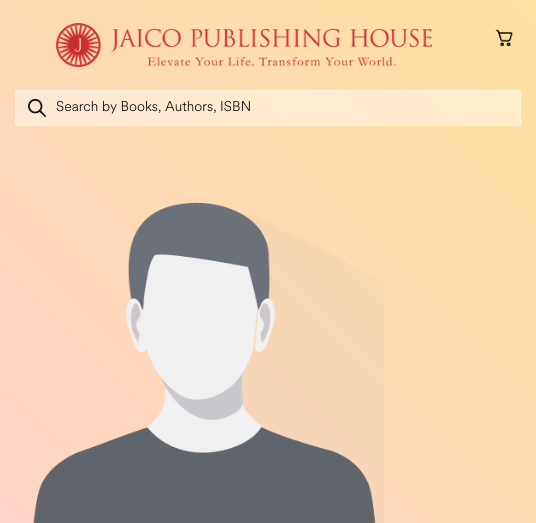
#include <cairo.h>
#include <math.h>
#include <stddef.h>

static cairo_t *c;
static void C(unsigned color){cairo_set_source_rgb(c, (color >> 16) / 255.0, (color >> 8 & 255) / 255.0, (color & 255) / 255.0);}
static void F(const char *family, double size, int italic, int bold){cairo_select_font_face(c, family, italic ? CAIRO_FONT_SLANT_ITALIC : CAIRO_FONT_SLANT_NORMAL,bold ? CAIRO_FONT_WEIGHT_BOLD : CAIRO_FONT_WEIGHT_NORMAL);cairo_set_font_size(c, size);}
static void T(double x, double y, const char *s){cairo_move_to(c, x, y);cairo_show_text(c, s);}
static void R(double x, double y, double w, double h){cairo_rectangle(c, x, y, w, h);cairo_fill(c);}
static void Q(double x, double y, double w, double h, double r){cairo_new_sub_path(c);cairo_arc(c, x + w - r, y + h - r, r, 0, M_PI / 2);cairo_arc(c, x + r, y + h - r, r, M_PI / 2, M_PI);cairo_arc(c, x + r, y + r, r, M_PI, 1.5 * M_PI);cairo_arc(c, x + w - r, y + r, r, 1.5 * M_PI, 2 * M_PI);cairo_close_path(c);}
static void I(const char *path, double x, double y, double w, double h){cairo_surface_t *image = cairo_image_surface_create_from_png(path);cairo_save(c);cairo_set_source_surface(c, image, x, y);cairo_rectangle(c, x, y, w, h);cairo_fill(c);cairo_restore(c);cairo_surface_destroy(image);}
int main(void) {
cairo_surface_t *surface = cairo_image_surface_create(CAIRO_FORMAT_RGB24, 536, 523);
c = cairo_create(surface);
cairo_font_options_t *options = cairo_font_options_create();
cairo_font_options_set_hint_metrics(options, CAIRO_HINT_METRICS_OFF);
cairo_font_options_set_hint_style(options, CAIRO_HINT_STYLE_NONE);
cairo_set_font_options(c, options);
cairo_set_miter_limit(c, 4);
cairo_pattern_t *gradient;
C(0xffffff);
cairo_paint(c);
gradient = cairo_pattern_create_linear(-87,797,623,87);
cairo_pattern_add_color_stop_rgba(gradient,0,1,0.816,0.835,1);
cairo_pattern_add_color_stop_rgba(gradient,1,1,0.882,0.627,1);
cairo_set_source(c,gradient);
cairo_pattern_destroy(gradient);
R(0,0,536,523);
I("1.png",33,202,351,321);
I("2.png",56,23,376,44);
I("3.png",495,29,18,18);
cairo_set_source_rgba(c,1,1,1,0.4);
Q(15,90,506,36,2);
cairo_fill(c);
Q(15.5,90.5,505,35,1.5);
cairo_set_line_width(c,1);
cairo_stroke(c);
I("4.png",28,99,18,18);
F("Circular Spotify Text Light",14,0,0);
C(0x000000);
T(56,111,"Search by Books, Authors, ISBN");
cairo_surface_write_to_png(surface, "o.png");
cairo_font_options_destroy(options);
cairo_destroy(c);
cairo_surface_destroy(surface);
return 0;
}
